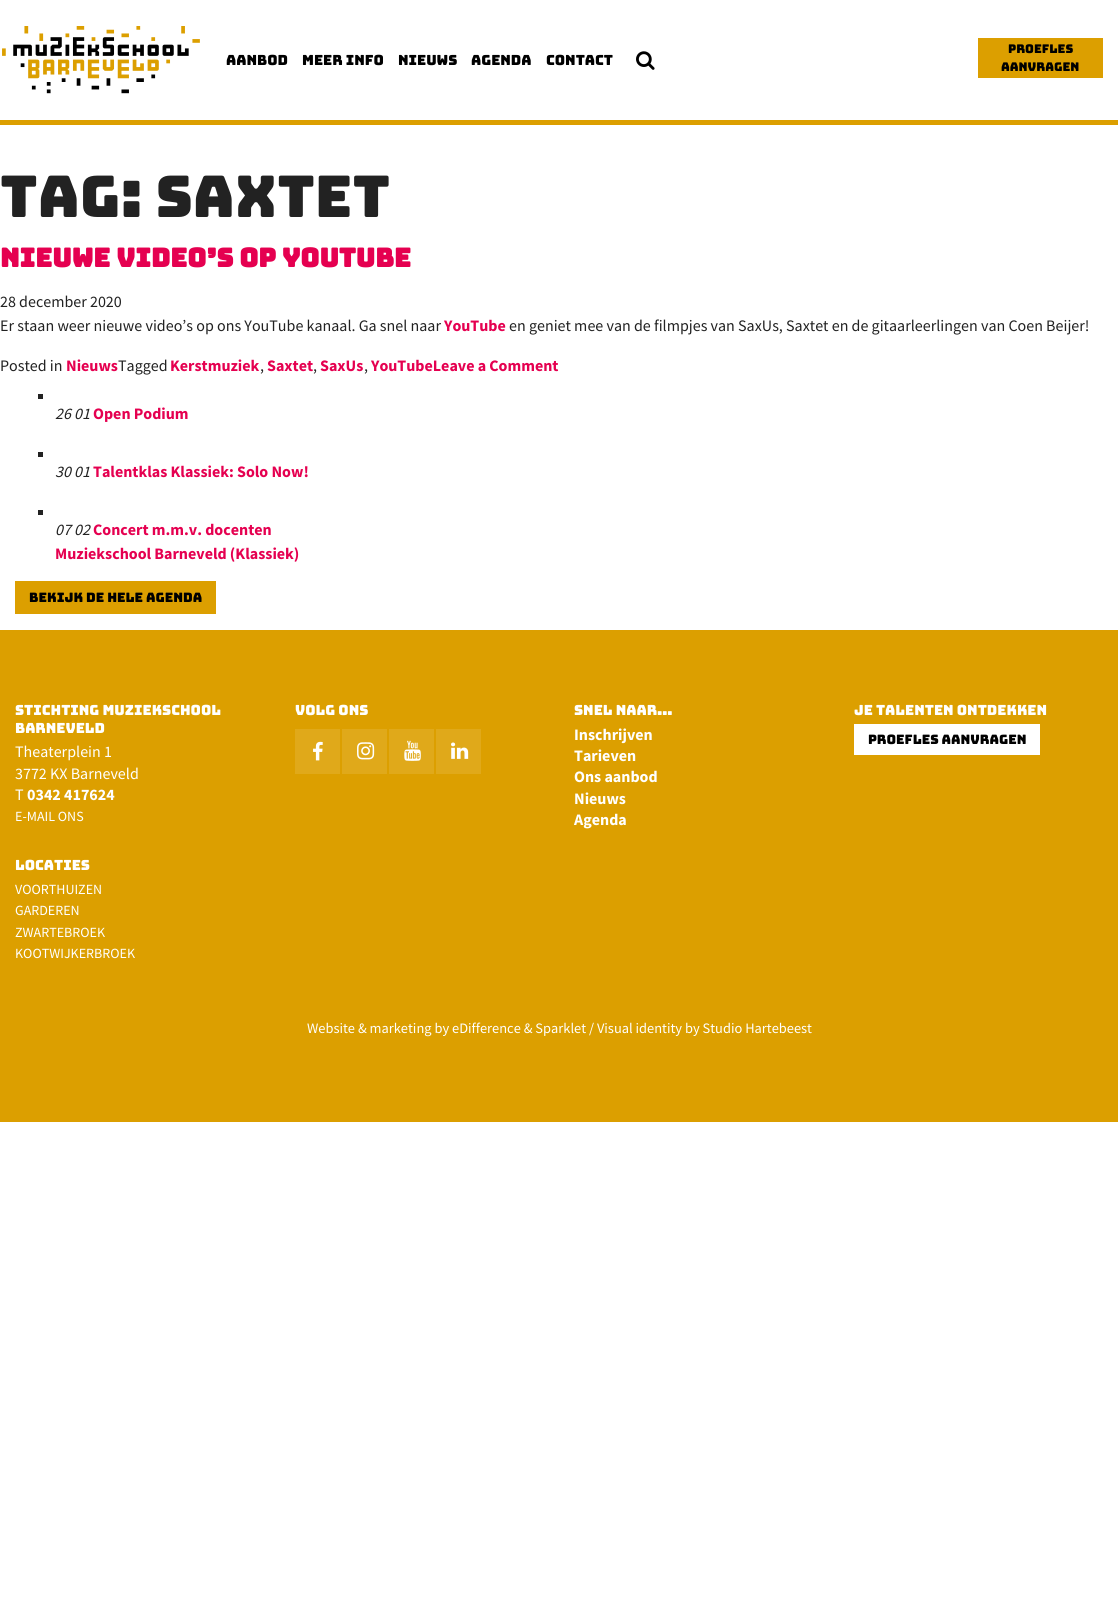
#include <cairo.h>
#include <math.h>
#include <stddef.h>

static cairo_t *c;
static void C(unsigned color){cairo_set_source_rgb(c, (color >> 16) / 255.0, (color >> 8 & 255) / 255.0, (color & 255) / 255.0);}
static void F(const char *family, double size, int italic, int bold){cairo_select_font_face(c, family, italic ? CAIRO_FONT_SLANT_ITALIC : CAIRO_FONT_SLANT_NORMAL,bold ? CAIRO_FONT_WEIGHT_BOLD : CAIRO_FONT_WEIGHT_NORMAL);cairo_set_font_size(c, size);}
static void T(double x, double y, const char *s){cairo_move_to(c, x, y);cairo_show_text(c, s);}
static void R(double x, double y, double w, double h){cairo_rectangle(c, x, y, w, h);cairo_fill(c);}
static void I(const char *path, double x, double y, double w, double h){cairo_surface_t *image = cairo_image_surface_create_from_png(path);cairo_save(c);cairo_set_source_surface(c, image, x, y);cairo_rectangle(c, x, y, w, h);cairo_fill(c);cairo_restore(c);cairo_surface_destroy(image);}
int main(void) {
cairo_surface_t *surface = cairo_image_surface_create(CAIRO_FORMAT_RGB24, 1118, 1617);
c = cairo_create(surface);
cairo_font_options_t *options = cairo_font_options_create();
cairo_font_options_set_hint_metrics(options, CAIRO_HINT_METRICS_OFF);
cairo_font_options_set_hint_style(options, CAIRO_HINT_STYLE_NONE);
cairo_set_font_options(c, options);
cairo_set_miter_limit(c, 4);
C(0xffffff);
cairo_paint(c);
C(0xdc9f00);
R(0,120,1118,5);
I("1.png",2,26,198,68);
F("Bungee",14,0,0);
C(0x000000);
T(226,65,"AANBOD");
T(302,65,"MEER INFO");
T(398,65,"NIEUWS");
T(471,65,"AGENDA");
T(546,65,"CONTACT");
I("2.png",636,51,19,19);
C(0xdc9f00);
R(978,38,125,40);
F("Bungee",12,0,0);
C(0x000000);
T(1008,53,"PROEFLES");
T(1001,71,"AANVRAGEN");
F("Bungee",57.5,0,0);
C(0x222222);
T(0,217,"TAG: SAXTET");
F("Bungee",26,0,1);
C(0xe50050);
T(0,267,"NIEUWE VIDEO’S OP YOUTUBE");
F("Source Sans Pro",16,0,0);
C(0x222222);
T(0,307,"28 december 2020");
T(0,331,"Er staan weer nieuwe video’s op ons YouTube kanaal. Ga snel naar");
F("Source Sans Pro",16,0,1);
C(0xe50050);
T(444,331,"YouTube");
F("Source Sans Pro",16,0,0);
C(0x222222);
T(509,331,"en geniet mee van de filmpjes van SaxUs, Saxtet en de gitaarleerlingen van Coen Beijer!");
T(0,371,"Posted in");
F("Source Sans Pro",16,0,1);
C(0xe50050);
T(66,371,"Nieuws");
F("Source Sans Pro",16,0,0);
C(0x222222);
T(118,371,"Tagged");
F("Source Sans Pro",16,0,1);
C(0xe50050);
T(170,371,"Kerstmuziek");
F("Source Sans Pro",16,0,0);
C(0x222222);
T(260,371,",");
F("Source Sans Pro",16,0,1);
C(0xe50050);
T(267,371,"Saxtet");
F("Source Sans Pro",16,0,0);
C(0x222222);
T(313,371,",");
F("Source Sans Pro",16,0,1);
C(0xe50050);
T(320,371,"SaxUs");
F("Source Sans Pro",16,0,0);
C(0x222222);
T(364,371,",");
F("Source Sans Pro",16,0,1);
C(0xe50050);
T(371,371,"YouTubeLeave a Comment");
C(0x222222);
R(38,394,5,5);
F("Source Sans Pro",16,1,0);
T(55,419,"26 01");
F("Source Sans Pro",16,0,1);
C(0xe50050);
T(93,419,"Open Podium");
C(0x222222);
R(38,452,5,5);
F("Source Sans Pro",16,1,0);
T(55,477,"30 01");
F("Source Sans Pro",16,0,1);
C(0xe50050);
T(93,477,"Talentklas Klassiek: Solo Now!");
C(0x222222);
R(38,510,5,5);
F("Source Sans Pro",16,1,0);
T(55,535,"07 02");
F("Source Sans Pro",16,0,1);
C(0xe50050);
T(93,535,"Concert m.m.v. docenten");
T(55,559,"Muziekschool Barneveld (Klassiek)");
C(0xdc9f00);
R(15,581,201,33);
F("Bungee",13,0,0);
C(0x000000);
T(29,602,"BEKIJK DE HELE AGENDA");
C(0xdc9f00);
R(0,630,1118,492);
F("Bungee",14,0,0);
C(0xffffff);
T(15,715,"STICHTING MUZIEKSCHOOL");
T(15,733,"BARNEVELD");
F("Source Sans Pro",16,0,0);
T(15,757,"Theaterplein 1");
T(15,779,"3772 KX Barneveld");
T(15,800,"T");
F("Source Sans Pro",16,0,1);
T(27,800,"0342 417624");
F("Source Sans Pro",14,0,0);
T(15,821,"E-MAIL ONS");
F("Bungee",14,0,0);
T(15,870,"LOCATIES");
F("Source Sans Pro",14,0,0);
T(15,894,"VOORTHUIZEN");
T(15,915,"GARDEREN");
T(15,937,"ZWARTEBROEK");
T(15,958,"KOOTWIJKERBROEK");
F("Bungee",14,0,0);
T(295,715,"VOLG ONS");
C(0xe0a91a);
R(295,729,45,45);
I("3.png",313,741,10,20);
R(342,729,45,45);
I("4.png",357,742,18,18);
R(389,729,45,45);
I("5.png",404,740,17,21);
R(436,729,45,45);
I("6.png",451,742,18,17);
C(0xffffff);
T(574,715,"SNEL NAAR…");
F("Source Sans Pro",16,0,1);
T(574,740,"Inschrijven");
T(574,761,"Tarieven");
T(574,782,"Ons aanbod");
T(574,804,"Nieuws");
T(574,825,"Agenda");
F("Bungee",14,0,0);
T(854,715,"JE TALENTEN ONTDEKKEN");
R(854,724,186,31);
F("Bungee",13,0,0);
C(0x000000);
T(868,744,"PROEFLES AANVRAGEN");
F("Source Sans Pro",14.4,0,0);
C(0xffffff);
T(307,1033,"Website & marketing by eDifference & Sparklet / Visual identity by Studio Hartebeest");
cairo_surface_write_to_png(surface, "o.png");
cairo_font_options_destroy(options);
cairo_destroy(c);
cairo_surface_destroy(surface);
return 0;
}
